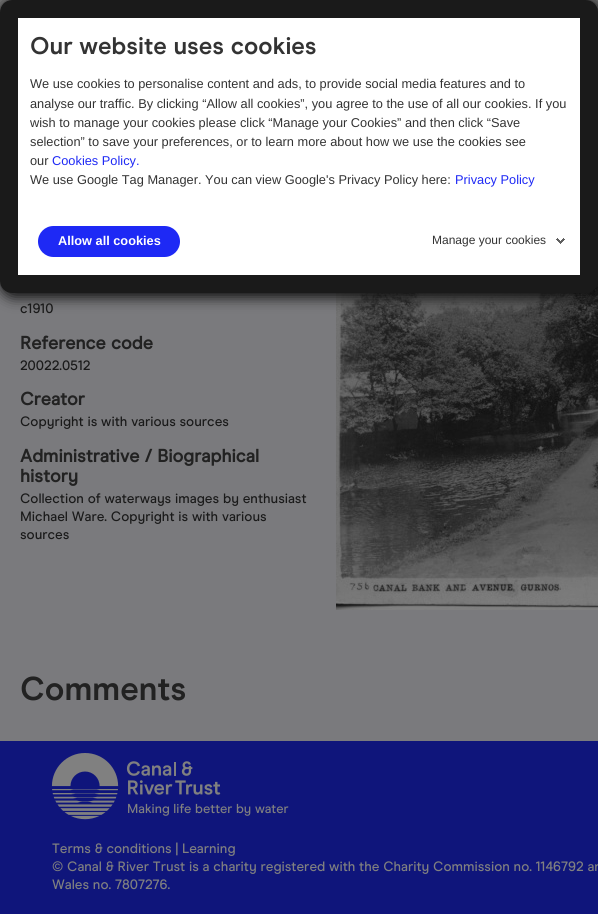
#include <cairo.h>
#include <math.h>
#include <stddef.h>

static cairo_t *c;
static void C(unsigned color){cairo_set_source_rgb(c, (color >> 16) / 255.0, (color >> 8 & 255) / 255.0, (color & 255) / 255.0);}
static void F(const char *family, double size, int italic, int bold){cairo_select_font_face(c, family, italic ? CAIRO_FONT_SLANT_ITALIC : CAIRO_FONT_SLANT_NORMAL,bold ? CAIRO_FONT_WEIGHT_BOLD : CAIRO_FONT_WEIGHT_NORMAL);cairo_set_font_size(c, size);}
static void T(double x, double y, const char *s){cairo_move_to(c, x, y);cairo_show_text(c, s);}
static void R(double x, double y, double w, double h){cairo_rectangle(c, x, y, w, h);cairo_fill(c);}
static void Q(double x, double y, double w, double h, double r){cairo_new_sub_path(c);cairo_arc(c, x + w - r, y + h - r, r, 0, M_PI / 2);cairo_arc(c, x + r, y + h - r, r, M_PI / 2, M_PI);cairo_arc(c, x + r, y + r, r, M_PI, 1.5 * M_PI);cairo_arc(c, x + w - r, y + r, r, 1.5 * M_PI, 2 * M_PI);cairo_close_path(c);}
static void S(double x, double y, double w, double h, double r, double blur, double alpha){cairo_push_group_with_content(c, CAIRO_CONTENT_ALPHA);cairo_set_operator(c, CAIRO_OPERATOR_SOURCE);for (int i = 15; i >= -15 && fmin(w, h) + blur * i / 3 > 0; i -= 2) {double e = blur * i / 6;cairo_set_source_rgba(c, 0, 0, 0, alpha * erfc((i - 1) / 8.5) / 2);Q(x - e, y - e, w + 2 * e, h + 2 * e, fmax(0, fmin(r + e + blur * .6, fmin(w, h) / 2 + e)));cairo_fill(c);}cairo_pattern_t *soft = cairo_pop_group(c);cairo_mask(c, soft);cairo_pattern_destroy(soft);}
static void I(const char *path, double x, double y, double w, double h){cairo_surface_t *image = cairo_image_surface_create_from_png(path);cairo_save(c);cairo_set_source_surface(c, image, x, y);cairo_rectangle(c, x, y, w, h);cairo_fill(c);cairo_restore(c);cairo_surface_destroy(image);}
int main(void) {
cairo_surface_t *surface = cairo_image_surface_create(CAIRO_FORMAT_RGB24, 598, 914);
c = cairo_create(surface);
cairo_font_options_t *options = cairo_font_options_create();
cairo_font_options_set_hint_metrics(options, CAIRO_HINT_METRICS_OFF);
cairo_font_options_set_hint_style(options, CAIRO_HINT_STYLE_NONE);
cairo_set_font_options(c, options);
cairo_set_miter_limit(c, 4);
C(0x7a7a7d);
cairo_paint(c);
C(0x808080);
R(0,0,598,12);
I("2.png",336,281,262,329);
C(0x090909);
S(0,0,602,297,14,7,1);
Q(9,9,580,275,3);
C(0x1a1a1a);
cairo_set_line_width(c,18);
cairo_stroke(c);
C(0xffffff);
R(18,18,562,257);
F("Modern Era",24,0,1);
C(0x333333);
T(30,54,"Our website uses cookies");
F("Liberation Sans",12.8,0,0);
T(30,88,"We use cookies to personalise content and ads, to provide social media features and to");
T(30,108,"analyse our traffic. By clicking “Allow all cookies”, you agree to the use of all our cookies. If you");
T(30,127,"wish to manage your cookies please click “Manage your Cookies” and then click “Save");
T(30,146,"selection” to save your preferences, or to learn more about how we use the cookies see");
T(30,165,"our");
C(0x1e29f5);
T(52,165,"Cookies Policy.");
C(0x333333);
T(30,184,"We use Google Tag Manager. You can view Google's Privacy Policy here:");
C(0x1e29f5);
T(455,184,"Privacy Policy");
Q(38,226,142,31,15.5);
cairo_fill(c);
F("Liberation Sans",12.75,0,1);
C(0xffffff);
T(58,245,"Allow all cookies");
I("1.png",556,238,9,6);
F("Liberation Sans",12,0,0);
C(0x333333);
T(432,244,"Manage your cookies");
F("Modern Era Medium",13.6,0,0);
C(0x1a1a1a);
T(20,313,"c1910");
F("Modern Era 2",18.1,0,1);
C(0x222222);
T(20,349,"Reference code");
F("Modern Era Medium",13.6,0,0);
C(0x1a1a1a);
T(20,370,"20022.0512");
F("Modern Era 2",18.1,0,1);
C(0x222222);
T(20,405,"Creator");
F("Modern Era Medium",13.6,0,0);
C(0x1a1a1a);
T(20,426,"Copyright is with various sources");
F("Modern Era 2",18.1,0,1);
C(0x222222);
T(20,462,"Administrative / Biographical");
T(20,482,"history");
F("Modern Era Medium",13.6,0,0);
C(0x1a1a1a);
T(20,503,"Collection of waterways images by enthusiast");
T(20,521,"Michael Ware. Copyright is with various");
T(20,539,"sources");
F("Modern Era",33,0,1);
C(0x222222);
T(20,700,"Comments");
C(0x0f157b);
R(0,741,598,173);
I("3.png",51,753,170,67);
F("Modern Era Medium",13,0,0);
C(0x808080);
T(127,813,"Making life better by water");
F("Modern Era Medium",13.6,0,0);
T(52,853,"Terms & conditions | Learning");
T(52,871,"© Canal & River Trust is a charity registered with the Charity Commission no. 1146792 an");
T(52,889,"Wales no. 7807276.");
cairo_surface_write_to_png(surface, "o.png");
cairo_font_options_destroy(options);
cairo_destroy(c);
cairo_surface_destroy(surface);
return 0;
}
